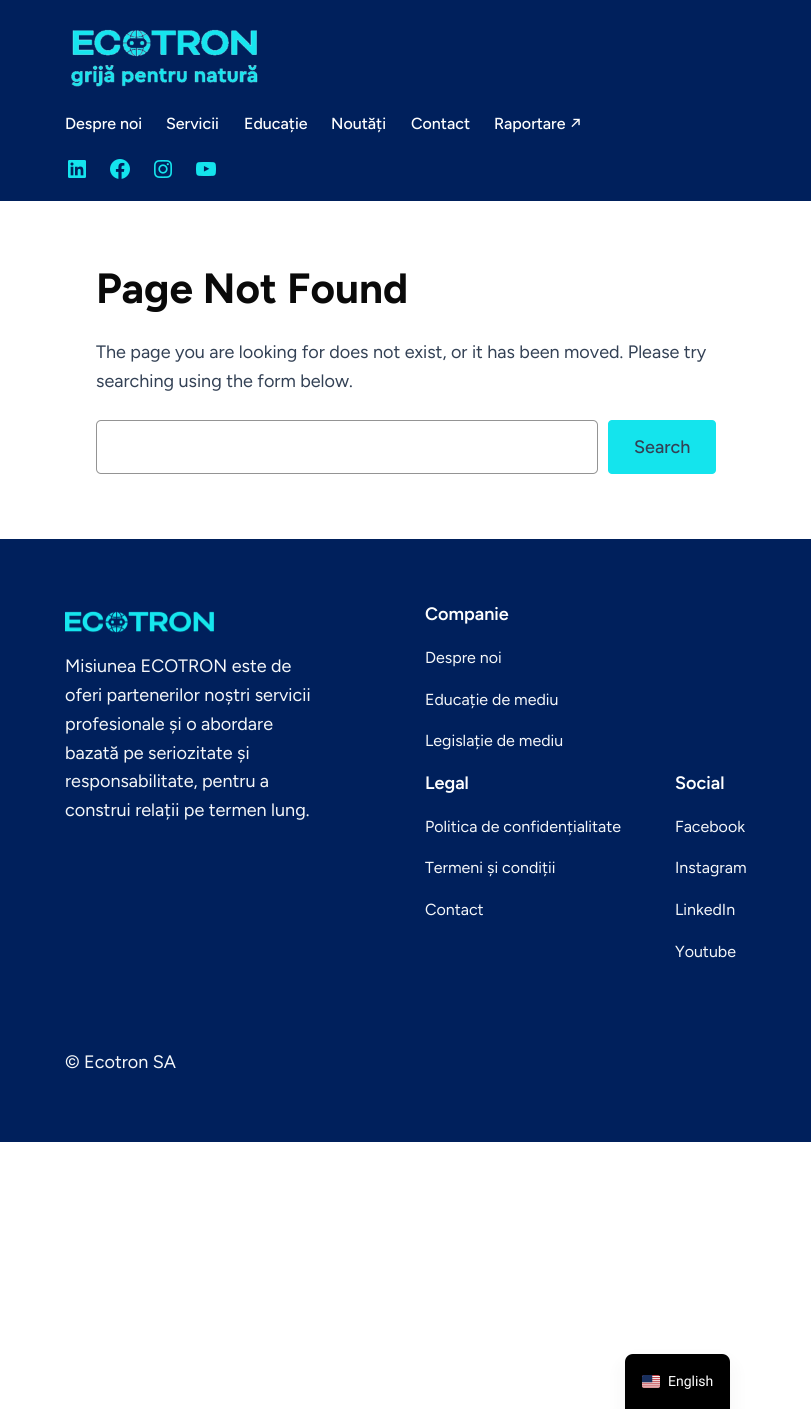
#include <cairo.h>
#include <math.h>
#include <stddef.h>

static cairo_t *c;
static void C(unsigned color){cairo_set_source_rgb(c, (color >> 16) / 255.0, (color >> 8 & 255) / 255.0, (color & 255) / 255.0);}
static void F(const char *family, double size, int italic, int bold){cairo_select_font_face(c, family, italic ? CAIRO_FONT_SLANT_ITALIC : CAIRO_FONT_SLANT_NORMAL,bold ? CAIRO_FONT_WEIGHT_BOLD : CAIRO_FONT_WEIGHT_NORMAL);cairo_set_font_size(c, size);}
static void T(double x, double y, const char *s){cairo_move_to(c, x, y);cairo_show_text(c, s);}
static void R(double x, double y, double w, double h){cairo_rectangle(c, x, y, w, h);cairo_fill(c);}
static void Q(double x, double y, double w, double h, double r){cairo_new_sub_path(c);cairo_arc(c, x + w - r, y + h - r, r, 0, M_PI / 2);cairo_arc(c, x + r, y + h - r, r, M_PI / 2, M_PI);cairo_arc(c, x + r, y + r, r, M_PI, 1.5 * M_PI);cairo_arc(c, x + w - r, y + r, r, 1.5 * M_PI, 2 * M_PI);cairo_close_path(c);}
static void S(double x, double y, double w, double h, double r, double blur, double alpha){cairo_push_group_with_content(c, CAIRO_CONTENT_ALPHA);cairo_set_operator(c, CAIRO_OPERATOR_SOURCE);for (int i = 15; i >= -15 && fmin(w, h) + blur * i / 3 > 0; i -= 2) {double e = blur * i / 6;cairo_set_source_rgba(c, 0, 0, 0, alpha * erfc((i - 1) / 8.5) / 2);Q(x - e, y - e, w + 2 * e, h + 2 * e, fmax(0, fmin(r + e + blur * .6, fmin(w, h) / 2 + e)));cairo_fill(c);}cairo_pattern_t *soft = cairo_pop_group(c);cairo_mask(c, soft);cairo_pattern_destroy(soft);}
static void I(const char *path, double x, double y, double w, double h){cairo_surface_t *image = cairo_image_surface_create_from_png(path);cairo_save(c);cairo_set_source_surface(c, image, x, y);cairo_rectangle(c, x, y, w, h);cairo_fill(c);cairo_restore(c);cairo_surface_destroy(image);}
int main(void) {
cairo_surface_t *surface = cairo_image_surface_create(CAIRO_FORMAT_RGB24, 811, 1409);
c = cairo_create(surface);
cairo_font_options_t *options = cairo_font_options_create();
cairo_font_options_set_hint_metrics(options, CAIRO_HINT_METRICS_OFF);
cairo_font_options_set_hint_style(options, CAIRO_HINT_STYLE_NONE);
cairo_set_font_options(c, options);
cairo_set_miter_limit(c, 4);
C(0xffffff);
cairo_paint(c);
C(0x00205c);
R(0,0,811,201);
I("1.png",71,29,187,58);
F("Figtree Medium",16,0,0);
C(0xffffff);
T(65,129,"Despre noi");
T(166,129,"Servicii");
T(244,129,"Educație");
T(331,129,"Noutăți");
T(411,129,"Contact");
T(494,129,"Raportare");
T(570,130,"↗");
I("2.png",68,160,18,18);
I("3.png",110,159,20,20);
I("4.png",154,160,18,18);
I("5.png",196,162,20,14);
F("Figtree",42.25,0,1);
C(0x0a0a0a);
T(96,303,"Page Not Found");
F("Figtree",18,0,0);
C(0x334155);
T(96,358,"The page you are looking for does not exist, or it has been moved. Please try");
T(96,387,"searching using the form below.");
Q(96.5,420.5,501,53,4.5);
C(0x949494);
cairo_set_line_width(c,1);
cairo_stroke(c);
C(0x14e4ed);
Q(608,420,108,54,4);
cairo_fill(c);
F("Figtree Medium",18,0,0);
C(0x334155);
T(634,453,"Search");
C(0x00205c);
R(0,539,811,603);
I("6.png",65,611,150,22);
F("Figtree",18,0,0);
C(0xf5f7f9);
T(65,672,"Misiunea ECOTRON este de");
T(65,701,"oferi partenerilor noștri servicii");
T(65,730,"profesionale și o abordare");
T(65,759,"bazată pe seriozitate și");
T(65,787,"responsabilitate, pentru a");
T(65,816,"construi relații pe termen lung.");
F("Figtree SemiBold",18,0,0);
C(0xffffff);
T(425,620,"Companie");
F("Figtree",16,0,0);
C(0xf5f7f9);
T(425,663,"Despre noi");
T(425,705,"Educație de mediu");
T(425,746,"Legislație de mediu");
F("Figtree SemiBold",18,0,0);
C(0xffffff);
T(425,789,"Legal");
F("Figtree",16,0,0);
C(0xf5f7f9);
T(425,832,"Politica de confidențialitate");
T(425,873,"Termeni și condiții");
T(425,915,"Contact");
F("Figtree SemiBold",18,0,0);
C(0xffffff);
T(675,789,"Social");
F("Figtree",16,0,0);
C(0xf5f7f9);
T(675,832,"Facebook");
T(675,873,"Instagram");
T(675,915,"LinkedIn");
T(675,957,"Youtube");
F("Figtree",18,0,0);
T(65,1068,"© Ecotron SA");
C(0x000000);
S(625,1364,105,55,8,10,.05);
C(0x000000);
cairo_new_path(c);
cairo_move_to(c,633,1354);
cairo_line_to(c,722,1354);
cairo_curve_to(c,726.5,1354,730,1357.5,730,1362);
cairo_line_to(c,730,1409);
cairo_line_to(c,625,1409);
cairo_line_to(c,625,1362);
cairo_curve_to(c,625,1357.5,628.5,1354,633,1354);
cairo_close_path(c);
cairo_fill(c);
I("7.png",642,1375,18,13);
F("Roboto",14,0,0);
C(0xffffff);
T(668,1386,"English");
cairo_surface_write_to_png(surface, "o.png");
cairo_font_options_destroy(options);
cairo_destroy(c);
cairo_surface_destroy(surface);
return 0;
}
